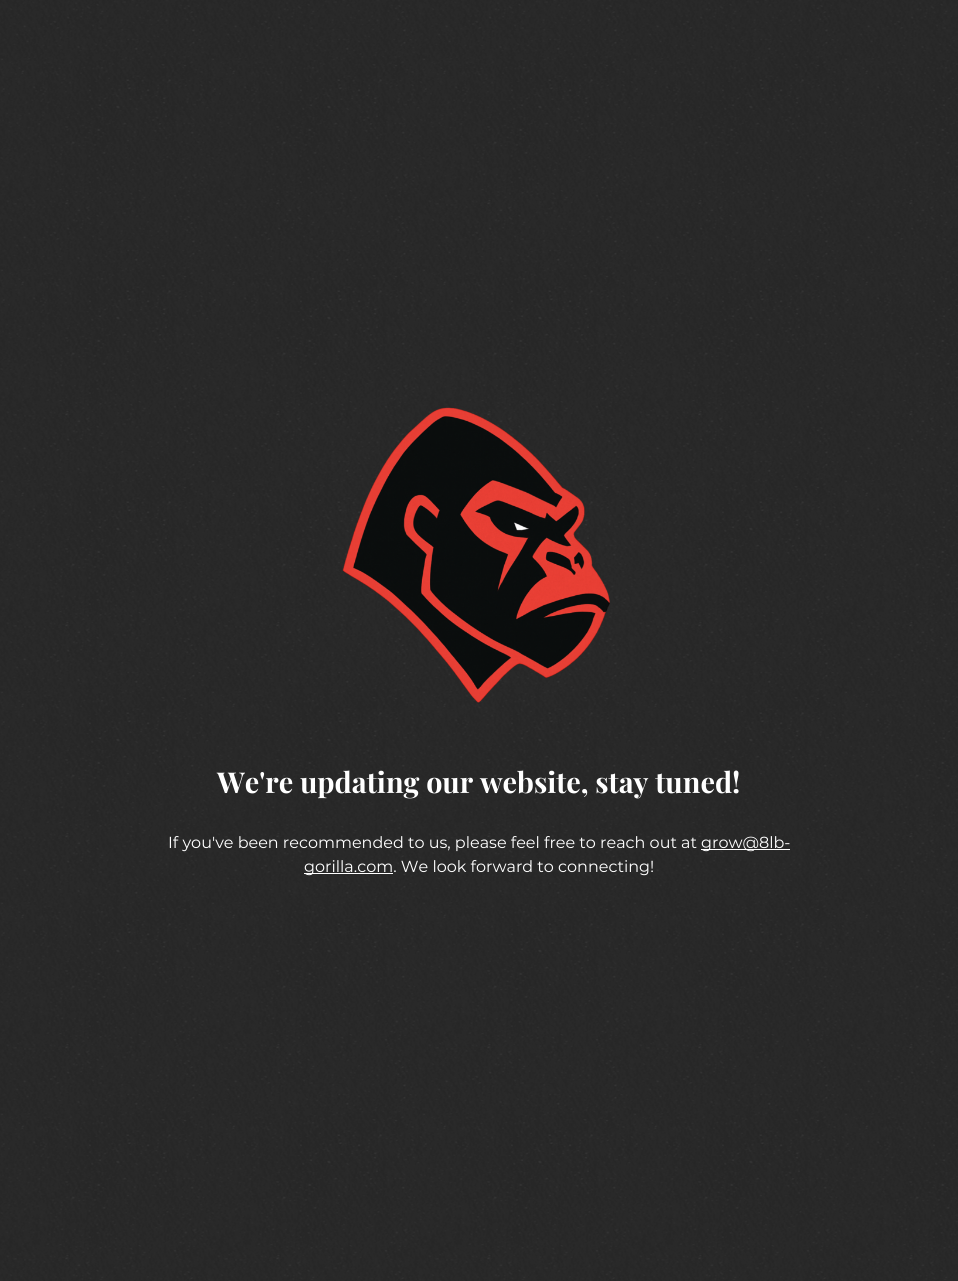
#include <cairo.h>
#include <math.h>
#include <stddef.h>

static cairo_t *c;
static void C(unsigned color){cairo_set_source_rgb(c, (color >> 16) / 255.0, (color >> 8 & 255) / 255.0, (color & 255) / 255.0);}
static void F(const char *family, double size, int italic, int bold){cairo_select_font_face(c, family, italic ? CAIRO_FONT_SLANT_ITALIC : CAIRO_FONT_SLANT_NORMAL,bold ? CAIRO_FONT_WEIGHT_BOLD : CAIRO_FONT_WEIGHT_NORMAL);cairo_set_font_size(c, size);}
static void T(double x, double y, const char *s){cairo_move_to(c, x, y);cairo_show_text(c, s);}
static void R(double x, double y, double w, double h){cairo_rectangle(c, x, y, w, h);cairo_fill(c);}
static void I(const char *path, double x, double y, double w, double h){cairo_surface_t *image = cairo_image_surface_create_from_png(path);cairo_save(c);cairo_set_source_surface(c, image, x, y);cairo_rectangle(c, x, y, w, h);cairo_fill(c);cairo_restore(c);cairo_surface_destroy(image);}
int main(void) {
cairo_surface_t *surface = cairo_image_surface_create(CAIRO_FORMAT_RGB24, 958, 1281);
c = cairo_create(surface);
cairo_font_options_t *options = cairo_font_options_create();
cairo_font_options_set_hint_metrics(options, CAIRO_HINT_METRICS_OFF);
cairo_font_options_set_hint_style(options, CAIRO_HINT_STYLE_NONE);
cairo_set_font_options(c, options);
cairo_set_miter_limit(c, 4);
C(0xffffff);
cairo_paint(c);
I("1.png",0,0,958,1281);
I("2.png",342,407,268,296);
F("Playfair Display",28.75,0,1);
C(0xffffff);
T(217,793,"We're updating our website, stay tuned!");
F("Montserrat",16,0,0);
T(168,848,"If you've been recommended to us, please feel free to reach out at");
R(701,849,89,1);
T(701,848,"grow@8lb-");
R(304,873,89,1);
T(304,872,"gorilla.com. We look forward to connecting!");
cairo_surface_write_to_png(surface, "o.png");
cairo_font_options_destroy(options);
cairo_destroy(c);
cairo_surface_destroy(surface);
return 0;
}
